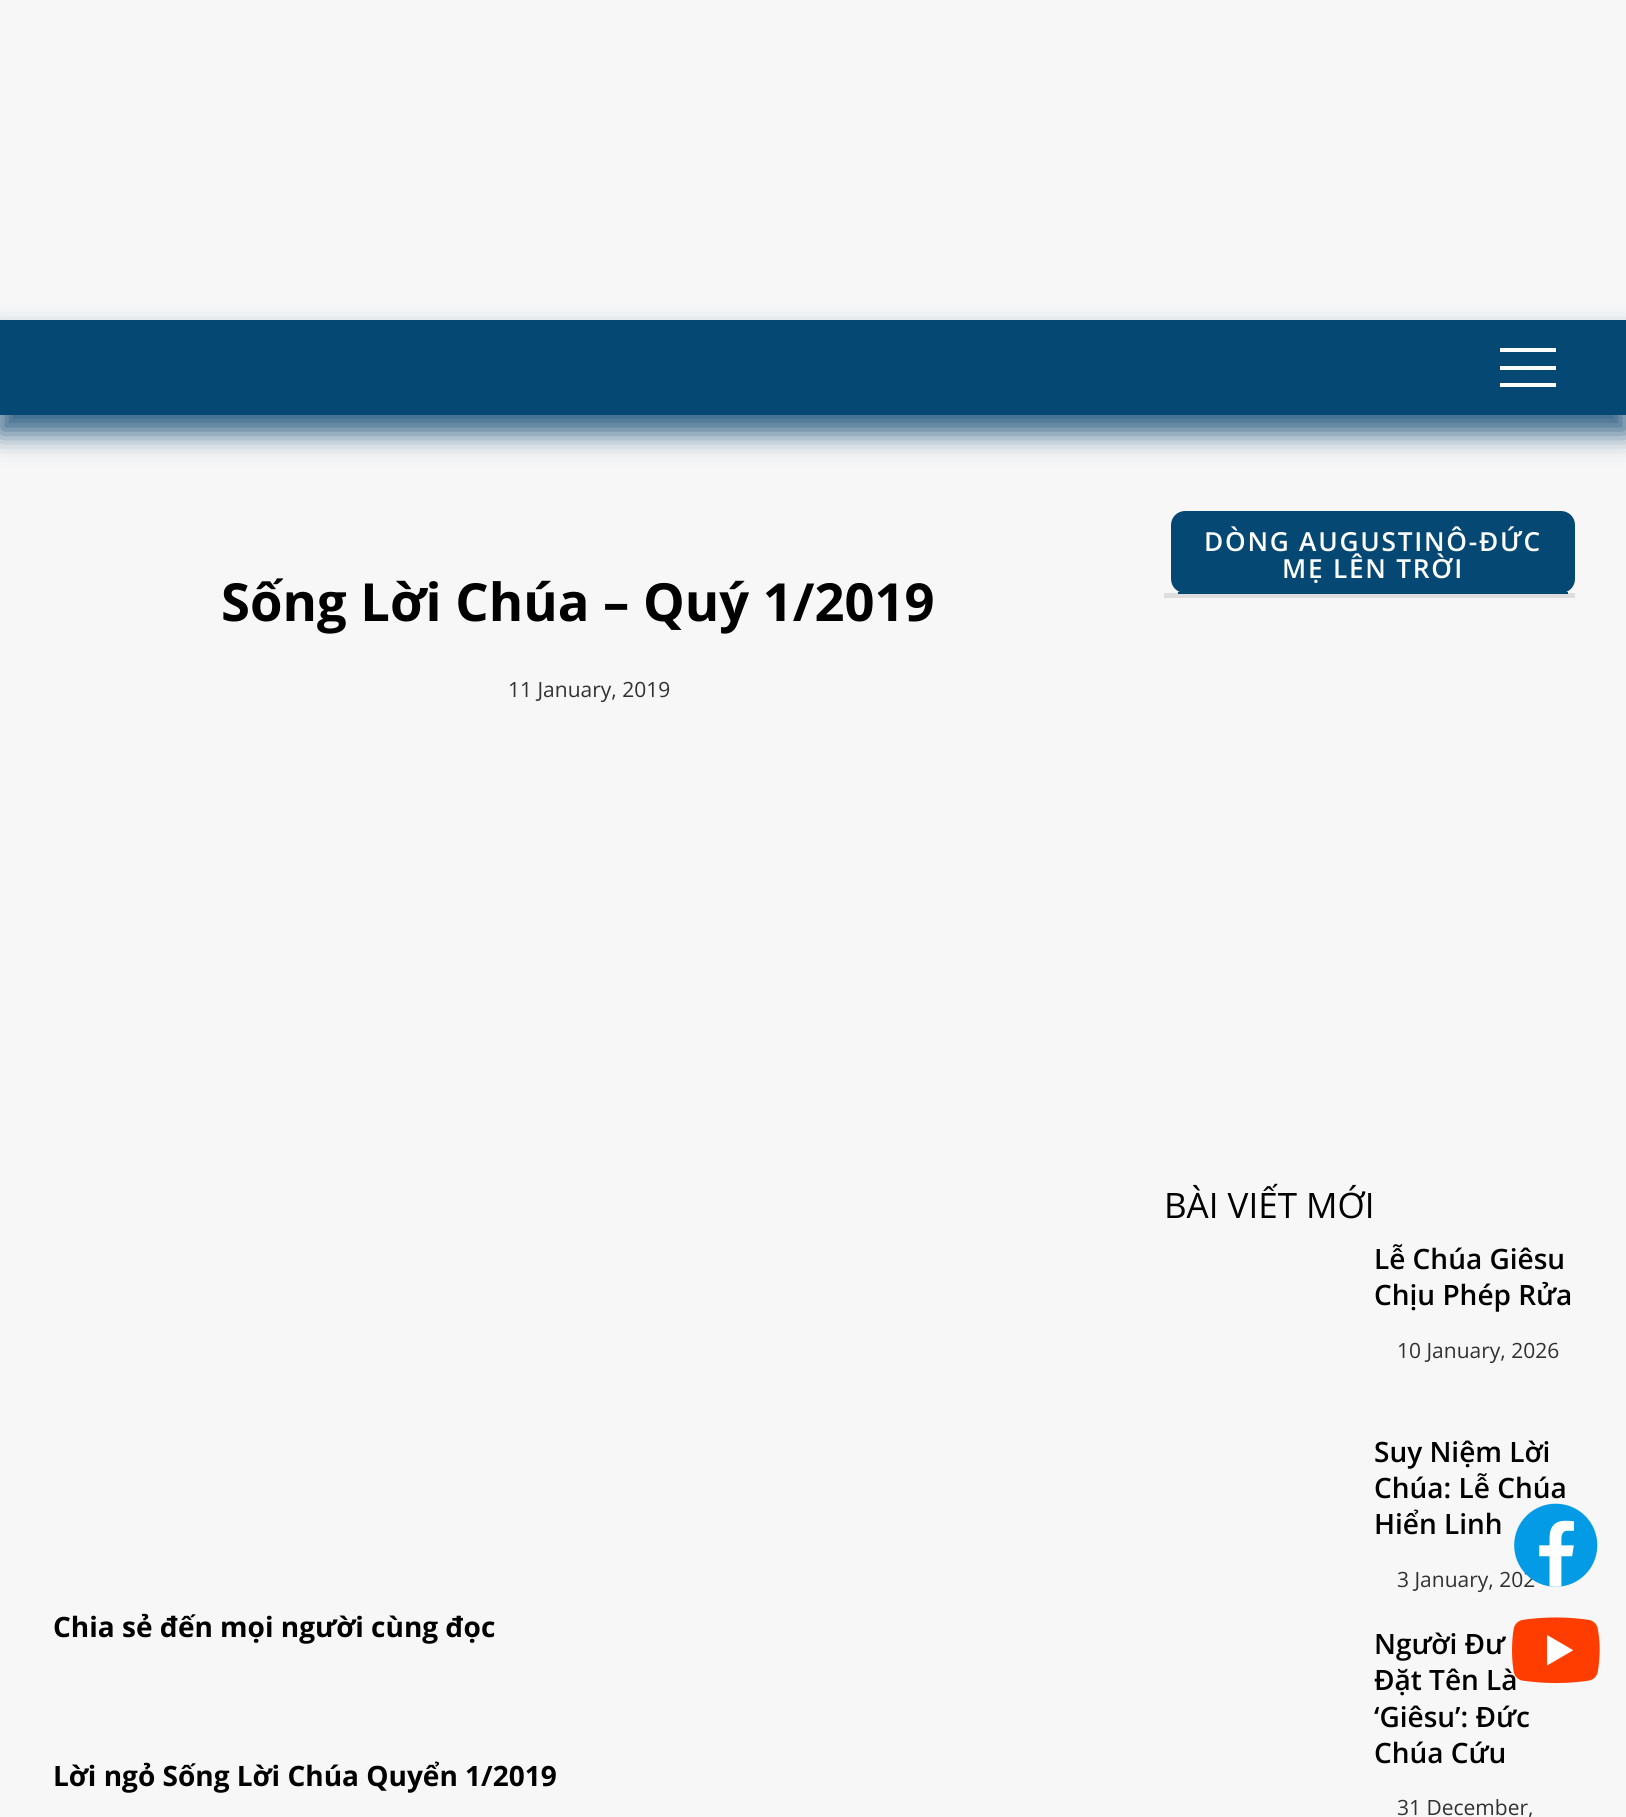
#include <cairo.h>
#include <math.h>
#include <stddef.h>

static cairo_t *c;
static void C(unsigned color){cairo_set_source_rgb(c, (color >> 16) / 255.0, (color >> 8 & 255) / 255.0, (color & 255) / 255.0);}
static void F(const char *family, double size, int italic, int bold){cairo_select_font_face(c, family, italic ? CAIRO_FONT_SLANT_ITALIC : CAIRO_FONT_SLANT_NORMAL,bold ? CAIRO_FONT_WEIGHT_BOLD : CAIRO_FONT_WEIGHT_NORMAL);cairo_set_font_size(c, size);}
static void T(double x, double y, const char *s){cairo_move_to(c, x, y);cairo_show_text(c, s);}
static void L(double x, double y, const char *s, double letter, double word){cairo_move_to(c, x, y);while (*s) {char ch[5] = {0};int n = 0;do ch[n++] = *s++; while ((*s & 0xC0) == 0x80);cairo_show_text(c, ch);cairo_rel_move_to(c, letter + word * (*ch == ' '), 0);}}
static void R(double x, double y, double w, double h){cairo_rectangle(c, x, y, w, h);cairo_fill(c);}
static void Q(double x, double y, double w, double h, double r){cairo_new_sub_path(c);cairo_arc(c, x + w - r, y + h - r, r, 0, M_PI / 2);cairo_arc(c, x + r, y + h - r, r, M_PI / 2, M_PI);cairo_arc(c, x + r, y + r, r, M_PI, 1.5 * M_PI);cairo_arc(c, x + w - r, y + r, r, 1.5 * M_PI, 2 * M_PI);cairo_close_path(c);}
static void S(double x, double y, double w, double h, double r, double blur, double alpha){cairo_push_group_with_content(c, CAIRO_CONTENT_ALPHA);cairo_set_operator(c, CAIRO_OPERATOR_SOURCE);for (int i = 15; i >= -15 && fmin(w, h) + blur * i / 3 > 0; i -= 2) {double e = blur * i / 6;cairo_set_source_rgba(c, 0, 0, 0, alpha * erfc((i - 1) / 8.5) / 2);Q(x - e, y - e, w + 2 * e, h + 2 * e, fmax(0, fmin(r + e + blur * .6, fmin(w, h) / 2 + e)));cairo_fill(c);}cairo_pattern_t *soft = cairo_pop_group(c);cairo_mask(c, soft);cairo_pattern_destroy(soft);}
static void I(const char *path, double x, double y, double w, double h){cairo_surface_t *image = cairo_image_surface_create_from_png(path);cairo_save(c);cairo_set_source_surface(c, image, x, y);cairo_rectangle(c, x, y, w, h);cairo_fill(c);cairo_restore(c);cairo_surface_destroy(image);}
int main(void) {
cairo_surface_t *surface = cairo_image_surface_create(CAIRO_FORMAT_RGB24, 1626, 1817);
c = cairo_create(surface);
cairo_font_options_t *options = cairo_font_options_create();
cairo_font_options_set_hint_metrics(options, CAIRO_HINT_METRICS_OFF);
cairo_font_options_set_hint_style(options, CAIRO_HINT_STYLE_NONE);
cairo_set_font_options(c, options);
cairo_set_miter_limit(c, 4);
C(0xf7f7f7);
cairo_paint(c);
C(0x376588);
S(-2,336,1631,98,0,13,1);
C(0x044873);
R(0,320,1626,95);
C(0xffffff);
R(1500,348,56,4);
R(1500,383,56,4);
R(1500,366,56,4);
F("Open Sans",52.5,0,1);
C(0x000000);
T(221,621,"Sống Lời Chúa – Quý 1/2019");
F("Open Sans",21,0,0);
C(0x313131);
T(508,697,"11 January, 2019");
F("Open Sans",28,0,1);
C(0x000000);
T(53,1637,"Chia sẻ đến mọi người cùng đọc");
T(53,1786,"Lời ngỏ Sống Lời Chúa Quyển 1/2019");
C(0xdedede);
R(1164,593,411,5);
C(0x044873);
Q(1171,511,404,82,14);
cairo_fill(c);
R(1178,592,390,2);
F("Open Sans SemiBold",26.25,0,0);
C(0xffffff);
L(1204,551,"DÒNG AUGUSTINÔ-ĐỨC",1.75,0);
L(1282,578,"MẸ LÊN TRỜI",1.75,0);
F("Open Sans",35,0,0);
C(0x000000);
T(1164,1218,"BÀI VIẾT MỚI");
F("Open Sans SemiBold",28,0,0);
T(1374,1269,"Lễ Chúa Giêsu");
T(1374,1305,"Chịu Phép Rửa");
F("Open Sans",21,0,0);
C(0x313131);
T(1397,1358,"10 January, 2026");
F("Open Sans SemiBold",28,0,0);
C(0x000000);
T(1374,1462,"Suy Niệm Lời");
T(1374,1498,"Chúa: Lễ Chúa");
T(1374,1534,"Hiển Linh");
F("Open Sans",21,0,0);
C(0x313131);
T(1397,1587,"3 January, 202");
F("Open Sans SemiBold",28,0,0);
C(0x000000);
T(1374,1654,"Người Đư");
T(1374,1690,"Đặt Tên Là");
T(1374,1727,"‘Giêsu’: Đức");
T(1374,1763,"Chúa Cứu");
F("Open Sans",21,0,0);
C(0x313131);
T(1397,1815,"31 December,");
I("1.png",1514,1503,84,84);
I("2.png",1512,1617,88,67);
cairo_surface_write_to_png(surface, "o.png");
cairo_font_options_destroy(options);
cairo_destroy(c);
cairo_surface_destroy(surface);
return 0;
}
